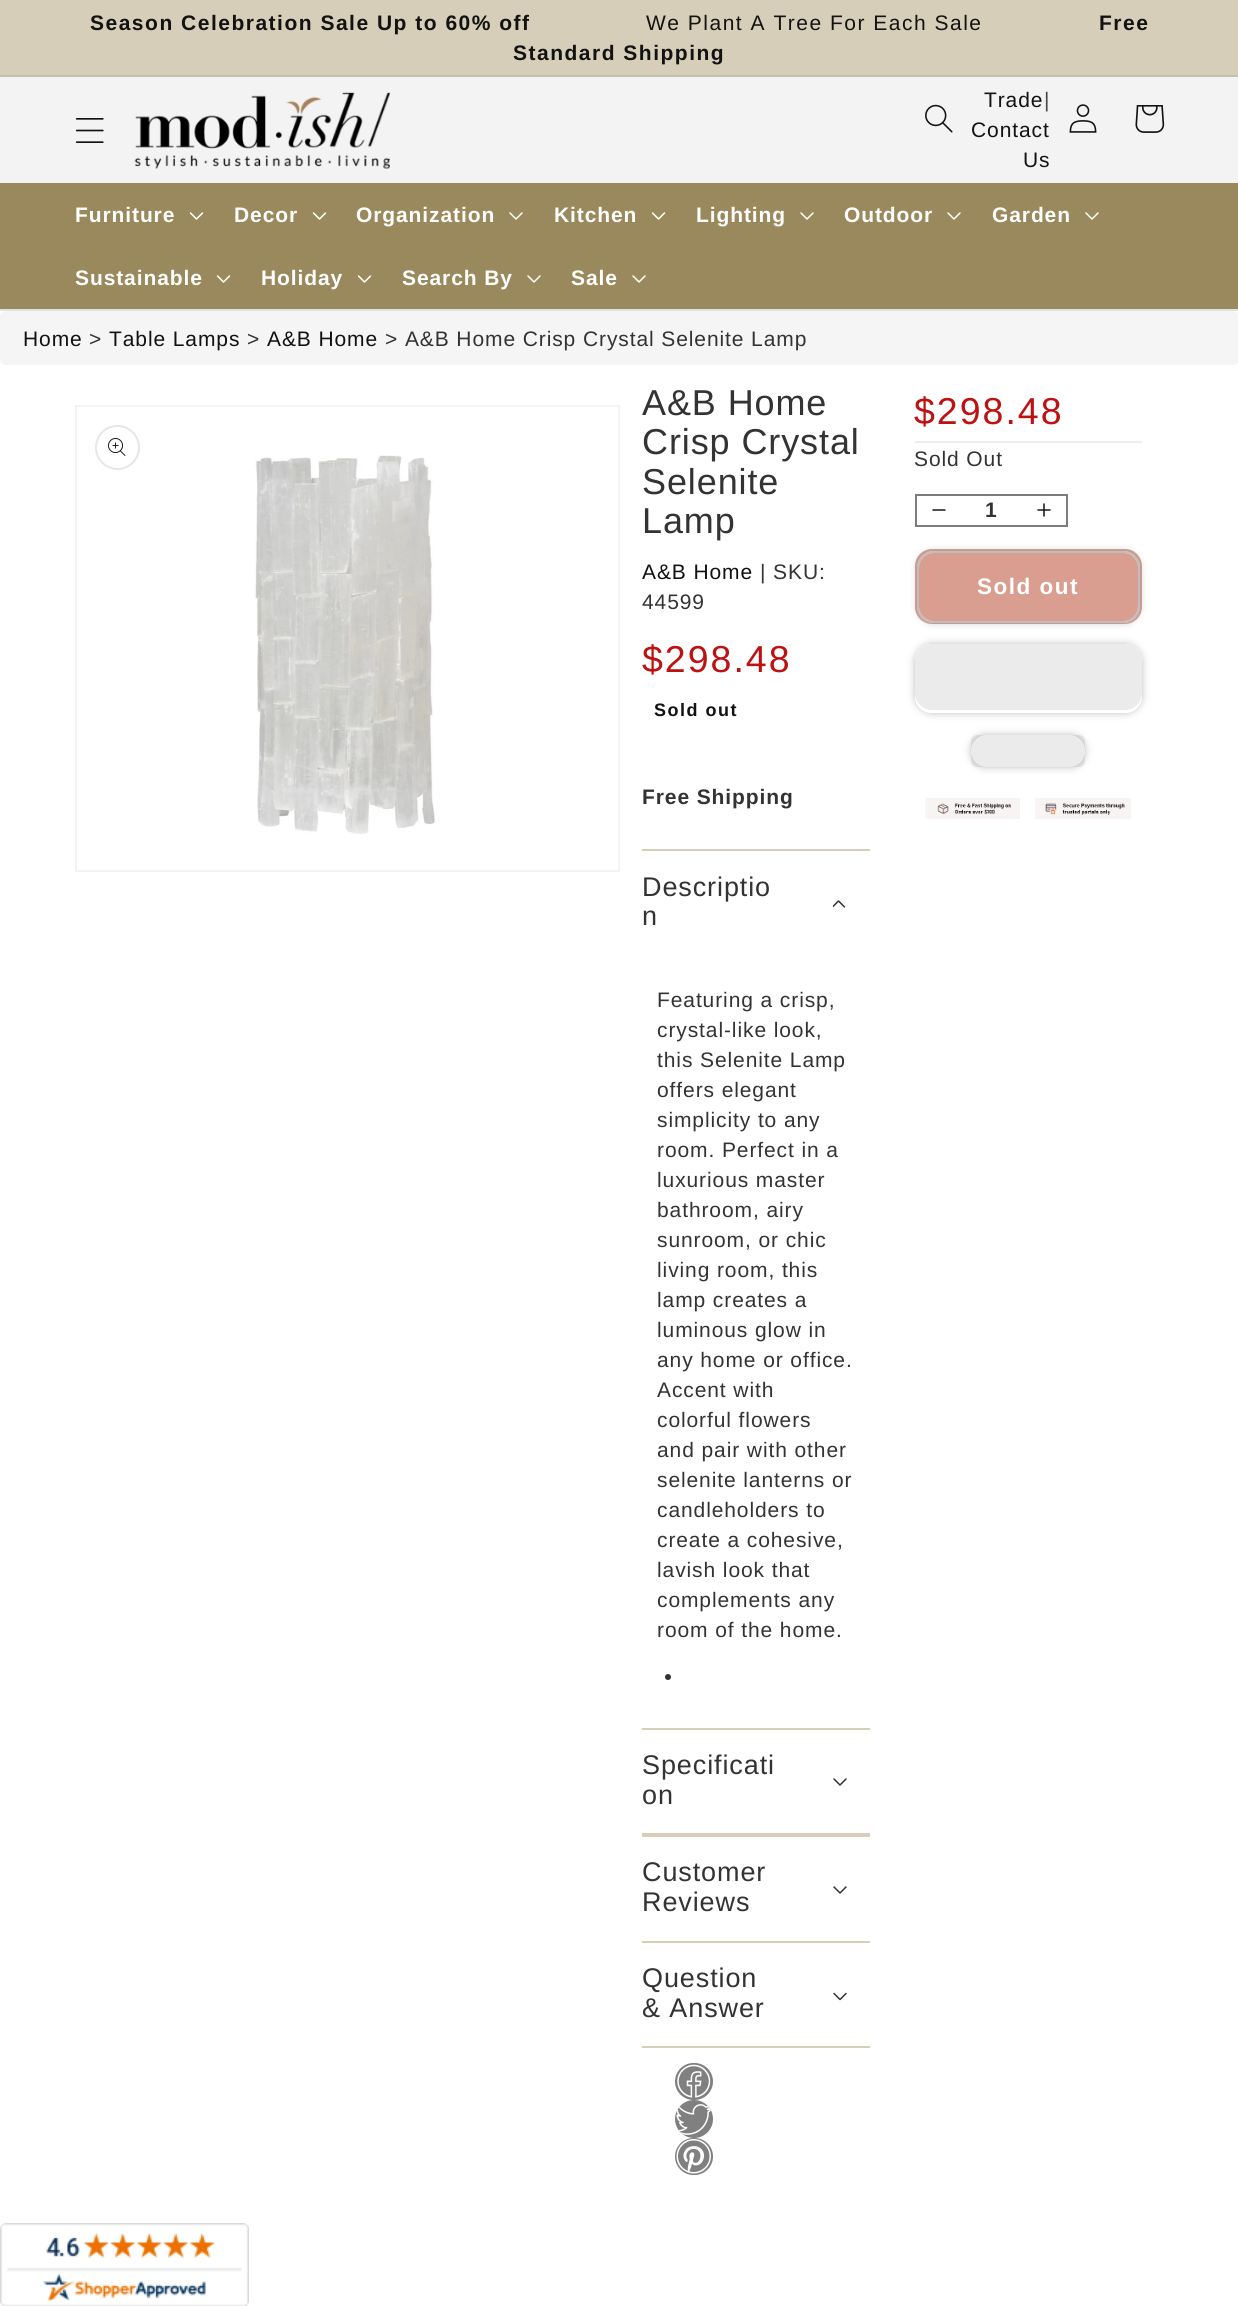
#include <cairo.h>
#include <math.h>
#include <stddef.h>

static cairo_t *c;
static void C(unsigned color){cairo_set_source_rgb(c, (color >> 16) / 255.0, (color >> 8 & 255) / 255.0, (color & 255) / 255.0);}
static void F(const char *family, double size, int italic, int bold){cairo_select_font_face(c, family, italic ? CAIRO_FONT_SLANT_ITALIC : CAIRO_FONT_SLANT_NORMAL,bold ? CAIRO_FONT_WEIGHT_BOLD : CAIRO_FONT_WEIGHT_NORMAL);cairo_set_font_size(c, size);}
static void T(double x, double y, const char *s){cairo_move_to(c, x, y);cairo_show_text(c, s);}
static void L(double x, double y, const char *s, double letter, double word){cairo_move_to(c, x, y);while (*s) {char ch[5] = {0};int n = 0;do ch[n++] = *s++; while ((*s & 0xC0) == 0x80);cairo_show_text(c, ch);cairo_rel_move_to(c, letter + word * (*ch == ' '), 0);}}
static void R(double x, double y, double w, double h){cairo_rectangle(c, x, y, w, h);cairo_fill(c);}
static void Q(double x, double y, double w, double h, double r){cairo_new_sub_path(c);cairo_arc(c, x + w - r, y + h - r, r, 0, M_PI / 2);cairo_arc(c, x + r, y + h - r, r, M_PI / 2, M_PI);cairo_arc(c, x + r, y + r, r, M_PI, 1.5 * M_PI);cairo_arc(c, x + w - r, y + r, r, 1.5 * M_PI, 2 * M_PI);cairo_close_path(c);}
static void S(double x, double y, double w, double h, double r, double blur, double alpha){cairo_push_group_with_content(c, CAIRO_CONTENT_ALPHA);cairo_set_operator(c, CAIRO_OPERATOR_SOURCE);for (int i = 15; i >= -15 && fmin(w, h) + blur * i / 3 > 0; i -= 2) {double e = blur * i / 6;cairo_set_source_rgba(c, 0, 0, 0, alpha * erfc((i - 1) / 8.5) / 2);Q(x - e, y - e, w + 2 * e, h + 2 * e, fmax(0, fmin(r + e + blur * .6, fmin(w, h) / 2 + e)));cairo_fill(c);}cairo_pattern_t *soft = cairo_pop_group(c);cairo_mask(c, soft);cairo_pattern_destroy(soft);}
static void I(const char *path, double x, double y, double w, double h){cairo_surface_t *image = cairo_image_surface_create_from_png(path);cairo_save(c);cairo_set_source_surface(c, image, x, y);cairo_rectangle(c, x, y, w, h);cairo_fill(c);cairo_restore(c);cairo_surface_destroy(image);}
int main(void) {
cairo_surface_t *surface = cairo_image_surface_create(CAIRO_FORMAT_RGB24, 1238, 2306);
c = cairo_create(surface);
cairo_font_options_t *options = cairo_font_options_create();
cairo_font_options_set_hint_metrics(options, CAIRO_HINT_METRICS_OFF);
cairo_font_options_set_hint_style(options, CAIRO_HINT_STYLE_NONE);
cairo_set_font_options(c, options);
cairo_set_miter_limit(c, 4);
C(0xffffff);
cairo_paint(c);
C(0xd6ceb8);
R(0,0,1238,75);
C(0xc6bfab);
R(0,75,1238,2);
F("Liberation Sans",21,0,1);
C(0x121212);
L(90,30,"Season Celebration Sale Up to 60% off",1.5,0);
F("Liberation Sans",21,0,0);
L(646,30,"We Plant A Tree For Each Sale",1.5,0);
F("Liberation Sans",21,0,1);
L(1099,30,"Free",1.5,0);
L(513,60,"Standard Shipping",1.5,0);
C(0xf3f3f3);
R(0,77,1238,106);
C(0xe1e1e1);
R(0,309,1238,2);
I("1.png",75,118,29,25);
I("2.png",134,92,256,77);
I("3.png",925,104,28,29);
F("Liberation Sans",21,0,0);
C(0x121212);
L(984,107,"Trade",.9,0);
C(0x4a4a4a);
L(1044,107,"|",.9,0);
C(0x121212);
L(971,137,"Contact",.9,0);
L(1023,167,"Us",.9,0);
I("4.png",1069,104,28,29);
I("5.png",1135,105,30,28);
C(0x99895c);
R(0,183,1238,126);
F("Liberation Sans",21,0,1);
C(0xffffff);
L(75,222,"Furniture",.9,0);
I("6.png",189,212,15,8);
L(234,222,"Decor",.9,0);
I("6.png",312,212,15,8);
L(356,222,"Organization",.9,0);
I("7.png",509,212,14,8);
L(554,222,"Kitchen",.9,0);
I("6.png",651,212,15,8);
L(696,222,"Lighting",.9,0);
I("7.png",800,212,14,8);
L(844,222,"Outdoor",.9,0);
I("7.png",947,212,14,8);
L(992,222,"Garden",.9,0);
I("7.png",1085,212,14,8);
L(75,285,"Sustainable",.9,0);
I("6.png",216,275,15,8);
L(261,285,"Holiday",.9,0);
I("6.png",357,275,15,8);
L(402,285,"Search By",.9,0);
I("7.png",527,275,14,8);
L(571,285,"Sale",.9,0);
I("7.png",632,275,14,8);
C(0xf5f5f5);
Q(0,311,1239,54,6);
cairo_fill(c);
F("Liberation Sans",21,0,0);
C(0x121212);
L(23,346,"Home",.9,0);
C(0x333333);
L(89,346,">",.9,0);
C(0x121212);
L(109,346,"Table Lamps",.9,0);
C(0x333333);
L(247,346,">",.9,0);
C(0x121212);
L(267,346,"A&B Home",.9,0);
C(0x333333);
L(385,346,"> A&B Home Crisp Crystal Selenite Lamp",.9,0);
cairo_rectangle(c,76,406,543,465);
C(0xf3f3f3);
cairo_stroke(c);
I("8.png",254,455,181,380);
cairo_arc(c,117.5,447.5,21.5,0,2 * M_PI);
C(0xe7e7e7);
cairo_stroke(c);
I("9.png",108,438,18,18);
F("Liberation Sans",36,0,0);
C(0x333333);
L(642,415,"A&B Home",.9,0);
L(642,454,"Crisp Crystal",.9,0);
L(642,494,"Selenite",.9,0);
L(642,533,"Lamp",.9,0);
F("Liberation Sans",21,0,0);
C(0x121212);
L(642,579,"A&B Home",.9,0);
C(0x333333);
L(760,579,"| SKU:",.9,0);
L(642,609,"44599",.9,0);
F("Liberation Sans",37.5,0,0);
C(0xbd1212);
L(642,672,"$298.48",2,0);
F("Liberation Sans",18,0,1);
C(0x121212);
L(654,716,"Sold out",1.5,0);
F("Liberation Sans",21,0,1);
C(0x333333);
L(642,804,"Free Shipping",.9,0);
C(0xd6ceb8);
R(642,849,228,2);
R(642,1728,228,2);
F("Liberation Sans",27,0,0);
C(0x333333);
L(642,896,"Descriptio",.9,0);
L(642,925,"n",.9,0);
I("10.png",833,900,13,8);
F("Liberation Sans",21,0,0);
L(657,1007,"Featuring a crisp,",.9,0);
L(657,1037,"crystal-like look,",.9,0);
L(657,1067,"this Selenite Lamp",.9,0);
L(657,1097,"offers elegant",.9,0);
L(657,1127,"simplicity to any",.9,0);
L(657,1157,"room. Perfect in a",.9,0);
L(657,1187,"luxurious master",.9,0);
L(657,1217,"bathroom, airy",.9,0);
L(657,1247,"sunroom, or chic",.9,0);
L(657,1277,"living room, this",.9,0);
L(657,1307,"lamp creates a",.9,0);
L(657,1337,"luminous glow in",.9,0);
L(657,1367,"any home or office.",.9,0);
L(657,1397,"Accent with",.9,0);
L(657,1427,"colorful flowers",.9,0);
L(657,1457,"and pair with other",.9,0);
L(657,1487,"selenite lanterns or",.9,0);
L(657,1517,"candleholders to",.9,0);
L(657,1547,"create a cohesive,",.9,0);
L(657,1577,"lavish look that",.9,0);
L(657,1607,"complements any",.9,0);
L(657,1637,"room of the home.",.9,0);
cairo_new_path(c);
cairo_arc(c,668,1677,3,0,2 * M_PI);
cairo_fill(c);
C(0xd6ceb8);
R(642,1833,228,4);
F("Liberation Sans",27,0,0);
C(0x333333);
L(642,1774,"Specificati",.9,0);
L(642,1804,"on",.9,0);
I("11.png",833,1778,14,8);
C(0xd6ceb8);
R(642,1941,228,2);
C(0x333333);
L(642,1881,"Customer",.9,0);
L(642,1911,"Reviews",.9,0);
I("11.png",833,1886,14,8);
C(0xd6ceb8);
R(642,2046,228,2);
C(0x333333);
L(642,1987,"Question",.9,0);
L(642,2017,"& Answer",.9,0);
I("12.png",833,1992,14,9);
C(0x808080);
Q(675,2063,38,37,18.5);
cairo_fill(c);
I("13.png",677,2064,34,34);
cairo_arc(c,694,2119,19,0,2 * M_PI);
cairo_fill(c);
I("14.png",676,2104,35,31);
Q(675,2138,38,37,18.5);
cairo_fill(c);
I("15.png",676,2139,35,35);
F("Liberation Sans",37.5,0,0);
C(0xbd1212);
L(914,424,"$298.48",2,0);
C(0xeeeeee);
R(915,441,227,2);
F("Liberation Sans",21,0,0);
C(0x333333);
L(914,466,"Sold Out",.9,0);
I("16.png",932,509,14,2);
I("17.png",1037,503,14,14);
cairo_rectangle(c,916,495,151,31);
C(0x7d7d7d);
cairo_stroke(c);
F("Liberation Sans",21,0,1);
C(0x333333);
T(985,517,"1");
C(0xda9e90);
Q(916,550,225,73,16);
cairo_fill_preserve(c);
cairo_stroke(c);
cairo_save(c);
cairo_set_fill_rule(c,CAIRO_FILL_RULE_EVEN_ODD);
cairo_new_path(c);
cairo_move_to(c,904,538);
cairo_line_to(c,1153,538);
cairo_line_to(c,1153,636);
cairo_line_to(c,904,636);
cairo_close_path(c);
cairo_move_to(c,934,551);
cairo_line_to(c,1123,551);
cairo_curve_to(c,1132.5,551,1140,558.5,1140,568);
cairo_line_to(c,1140,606);
cairo_curve_to(c,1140,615.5,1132.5,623,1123,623);
cairo_line_to(c,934,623);
cairo_curve_to(c,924.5,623,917,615.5,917,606);
cairo_line_to(c,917,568);
cairo_curve_to(c,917,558.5,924.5,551,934,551);
cairo_close_path(c);
cairo_clip(c);
C(0x898989);
S(917,551,223,72,17,4,.45);
cairo_restore(c);
Q(918,552,221,70,16);
C(0xffffff);
cairo_stroke(c);
Q(918,552,221,70,16);
cairo_set_source_rgba(c,0.537,0.537,0.537,0.55);
cairo_stroke(c);
F("Liberation Sans",22.5,0,1);
C(0xffffff);
L(977,594,"Sold out",1.5,0);
cairo_save(c);
cairo_set_fill_rule(c,CAIRO_FILL_RULE_EVEN_ODD);
cairo_new_path(c);
cairo_move_to(c,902,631);
cairo_line_to(c,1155,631);
cairo_line_to(c,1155,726);
cairo_line_to(c,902,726);
cairo_close_path(c);
cairo_move_to(c,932,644);
cairo_line_to(c,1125,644);
cairo_curve_to(c,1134.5,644,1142,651.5,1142,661);
cairo_line_to(c,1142,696);
cairo_curve_to(c,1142,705.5,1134.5,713,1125,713);
cairo_line_to(c,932,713);
cairo_curve_to(c,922.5,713,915,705.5,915,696);
cairo_line_to(c,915,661);
cairo_curve_to(c,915,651.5,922.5,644,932,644);
cairo_close_path(c);
cairo_clip(c);
C(0x717171);
S(915,644,227,69,17,4,.45);
cairo_restore(c);
C(0xebebeb);
Q(915,644,227,66,17);
cairo_fill(c);
Q(971,735,114,32,6);
cairo_fill(c);
cairo_save(c);
cairo_set_fill_rule(c,CAIRO_FILL_RULE_EVEN_ODD);
cairo_new_path(c);
cairo_move_to(c,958,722);
cairo_line_to(c,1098,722);
cairo_line_to(c,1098,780);
cairo_line_to(c,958,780);
cairo_close_path(c);
cairo_move_to(c,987,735);
cairo_line_to(c,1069,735);
cairo_curve_to(c,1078,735,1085,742,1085,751);
cairo_curve_to(c,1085,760,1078,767,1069,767);
cairo_line_to(c,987,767);
cairo_curve_to(c,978,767,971,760,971,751);
cairo_curve_to(c,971,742,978,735,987,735);
cairo_close_path(c);
cairo_clip(c);
C(0x717171);
S(971,735,114,32,16,4,.45);
cairo_restore(c);
I("18.png",925,798,95,21);
I("19.png",1035,798,96,21);
I("20.png",0,2223,249,83);
cairo_surface_write_to_png(surface, "o.png");
cairo_font_options_destroy(options);
cairo_destroy(c);
cairo_surface_destroy(surface);
return 0;
}
